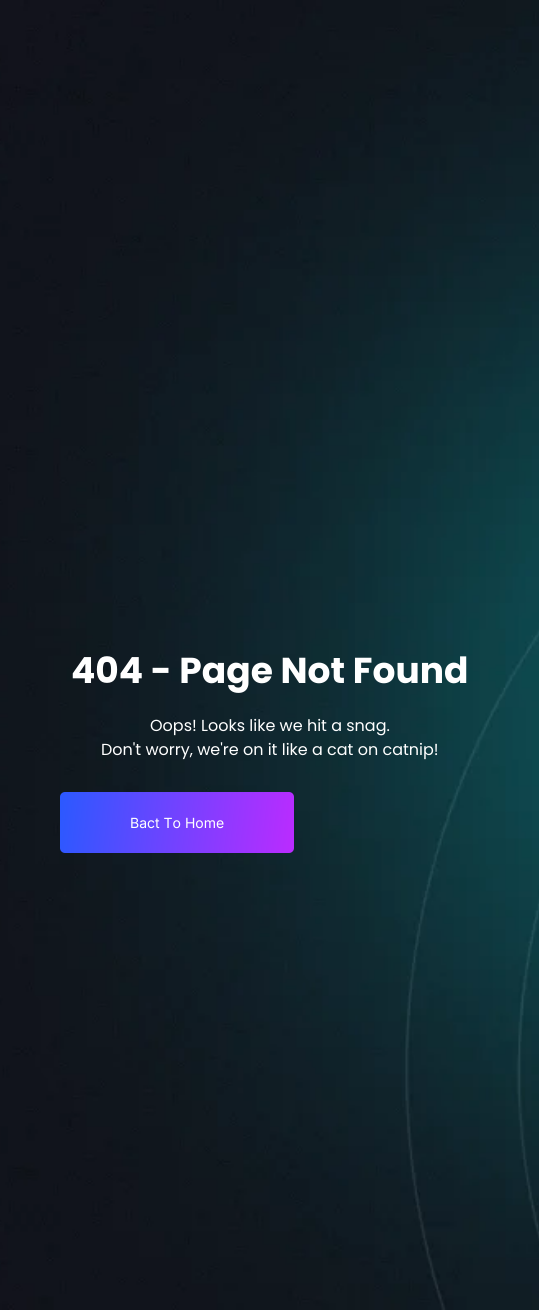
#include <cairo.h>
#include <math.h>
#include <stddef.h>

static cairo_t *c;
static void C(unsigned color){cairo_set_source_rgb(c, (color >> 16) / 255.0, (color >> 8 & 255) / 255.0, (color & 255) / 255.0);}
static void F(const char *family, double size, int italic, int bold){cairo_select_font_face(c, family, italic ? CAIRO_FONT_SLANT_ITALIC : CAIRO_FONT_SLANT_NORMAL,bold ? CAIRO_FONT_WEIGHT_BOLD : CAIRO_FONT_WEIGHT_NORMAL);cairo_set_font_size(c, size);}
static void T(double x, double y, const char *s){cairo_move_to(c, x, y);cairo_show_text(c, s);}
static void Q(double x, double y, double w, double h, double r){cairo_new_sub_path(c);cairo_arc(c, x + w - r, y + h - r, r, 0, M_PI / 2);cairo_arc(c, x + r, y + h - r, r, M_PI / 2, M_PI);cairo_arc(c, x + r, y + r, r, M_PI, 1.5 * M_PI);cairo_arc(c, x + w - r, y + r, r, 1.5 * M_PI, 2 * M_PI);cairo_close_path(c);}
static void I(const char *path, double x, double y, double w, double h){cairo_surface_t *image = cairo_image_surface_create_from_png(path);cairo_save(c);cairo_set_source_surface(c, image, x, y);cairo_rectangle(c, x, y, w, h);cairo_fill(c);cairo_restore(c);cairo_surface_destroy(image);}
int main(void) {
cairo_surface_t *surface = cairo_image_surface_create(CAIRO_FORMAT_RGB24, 539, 1310);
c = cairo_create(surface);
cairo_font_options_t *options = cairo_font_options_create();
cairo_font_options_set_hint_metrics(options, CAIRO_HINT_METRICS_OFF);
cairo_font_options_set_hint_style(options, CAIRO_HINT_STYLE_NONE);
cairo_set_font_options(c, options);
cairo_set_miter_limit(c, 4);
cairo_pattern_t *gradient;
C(0xffffff);
cairo_paint(c);
I("1.png",0,0,539,1310);
F("Poppins",36,0,1);
C(0xffffff);
T(71,683,"404 - Page Not Found");
F("Poppins",16,0,0);
T(150,731,"Oops! Looks like we hit a snag.");
T(101,755,"Don't worry, we're on it like a cat on catnip!");
gradient = cairo_pattern_create_linear(58,808,296,837);
cairo_pattern_add_color_stop_rgba(gradient,0,0.169,0.349,1,1);
cairo_pattern_add_color_stop_rgba(gradient,1,0.733,0.169,1,1);
cairo_set_source(c,gradient);
cairo_pattern_destroy(gradient);
Q(60,792,234,61,5);
cairo_fill(c);
F("Inter",14,0,0);
C(0xffffff);
T(130,828,"Bact To Home");
cairo_surface_write_to_png(surface, "o.png");
cairo_font_options_destroy(options);
cairo_destroy(c);
cairo_surface_destroy(surface);
return 0;
}
